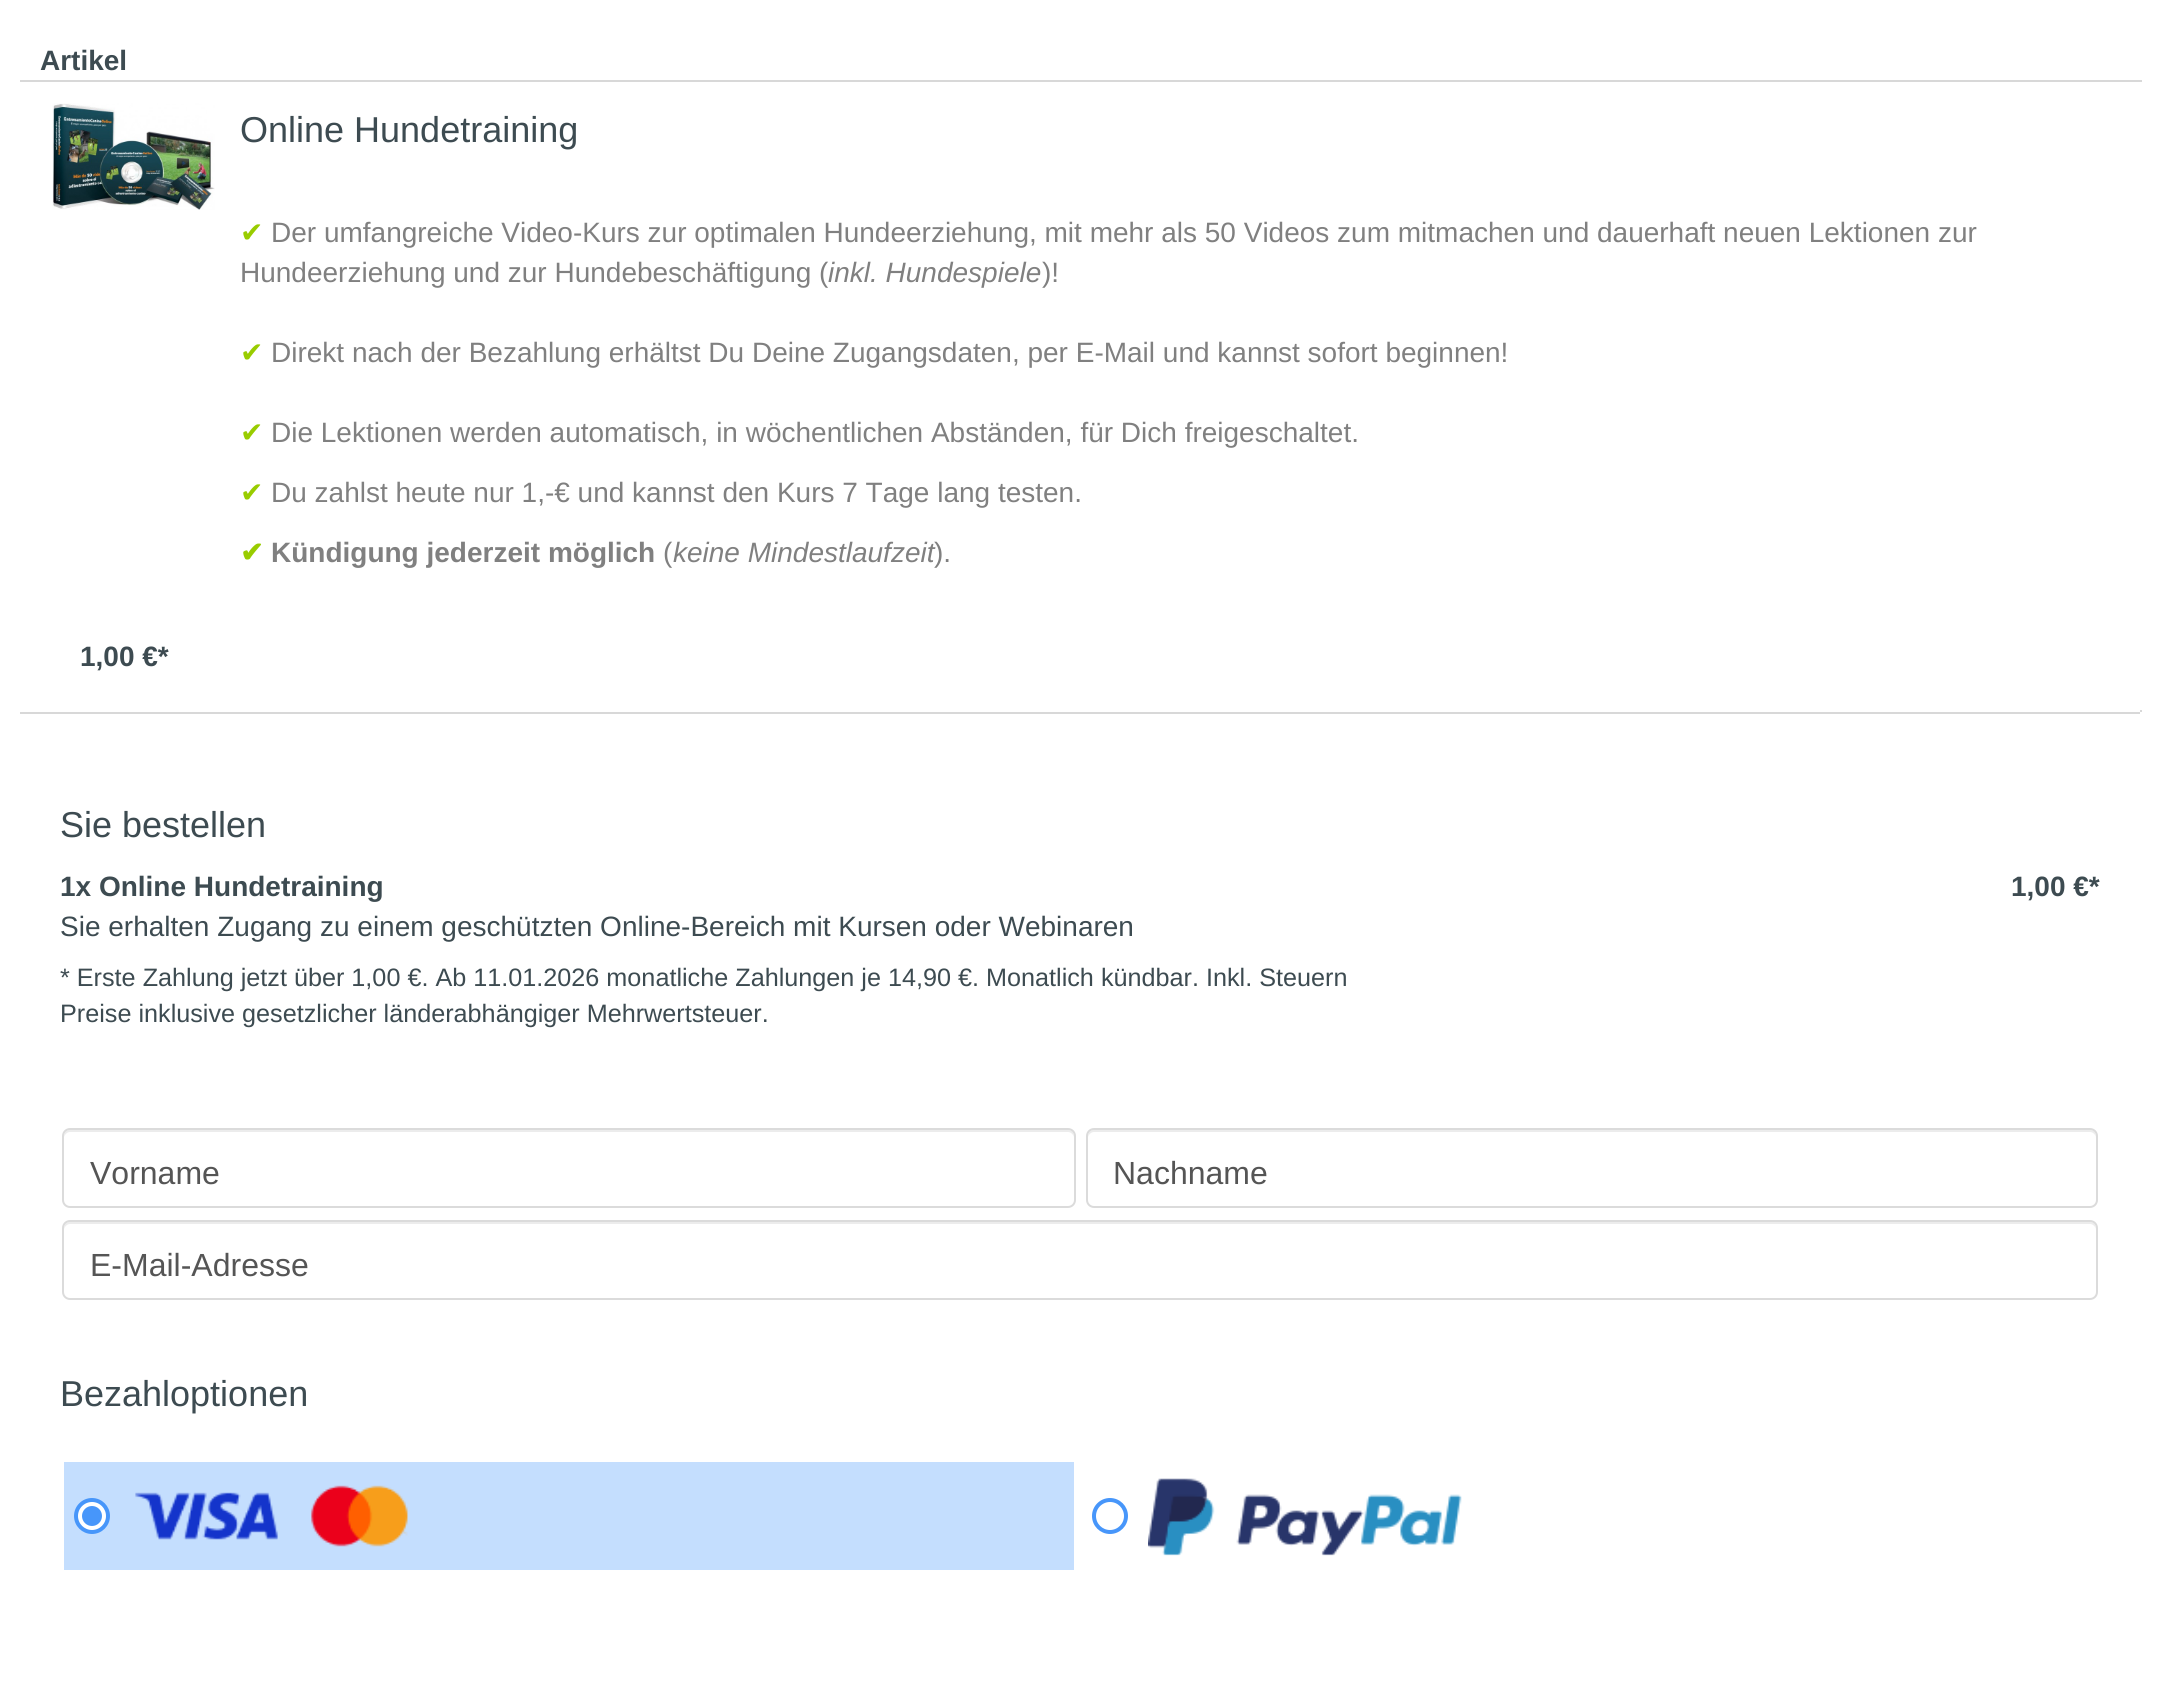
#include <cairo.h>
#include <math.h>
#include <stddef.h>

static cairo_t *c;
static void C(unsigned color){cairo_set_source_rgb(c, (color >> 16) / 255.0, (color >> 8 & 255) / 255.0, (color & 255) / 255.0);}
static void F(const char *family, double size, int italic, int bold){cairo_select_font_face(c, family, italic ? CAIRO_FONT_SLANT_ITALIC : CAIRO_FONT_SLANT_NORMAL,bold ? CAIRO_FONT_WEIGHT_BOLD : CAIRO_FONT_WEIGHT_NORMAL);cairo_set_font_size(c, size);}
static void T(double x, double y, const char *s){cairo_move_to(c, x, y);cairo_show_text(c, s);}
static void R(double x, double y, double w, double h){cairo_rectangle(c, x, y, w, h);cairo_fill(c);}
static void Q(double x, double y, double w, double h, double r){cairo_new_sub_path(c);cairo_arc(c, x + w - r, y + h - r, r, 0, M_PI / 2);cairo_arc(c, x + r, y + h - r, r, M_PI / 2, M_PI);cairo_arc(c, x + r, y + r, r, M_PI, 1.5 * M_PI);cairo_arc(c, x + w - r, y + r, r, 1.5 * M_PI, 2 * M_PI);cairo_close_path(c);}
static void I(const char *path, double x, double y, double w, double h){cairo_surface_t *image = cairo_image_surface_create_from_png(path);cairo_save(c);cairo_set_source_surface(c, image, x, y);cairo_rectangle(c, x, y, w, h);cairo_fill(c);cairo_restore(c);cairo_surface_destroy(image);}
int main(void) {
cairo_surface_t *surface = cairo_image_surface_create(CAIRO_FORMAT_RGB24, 2160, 1691);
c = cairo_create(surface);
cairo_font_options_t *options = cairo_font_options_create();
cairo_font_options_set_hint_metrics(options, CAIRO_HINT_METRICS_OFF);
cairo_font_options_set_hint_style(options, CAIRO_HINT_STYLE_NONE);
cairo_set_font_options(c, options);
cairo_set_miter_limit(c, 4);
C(0xffffff);
cairo_paint(c);
C(0xd8d8d8);
R(2140,710,2,2);
F("Liberation Sans",28,0,1);
C(0x3d4b51);
T(40,70,"Artikel");
C(0xd8d8d8);
R(20,80,2122,2);
I("1.png",52,103,163,107);
F("Liberation Sans",36,0,0);
C(0x3d4b51);
T(240,142,"Online Hundetraining");
F("DejaVu Sans",28,0,0);
C(0x99cc00);
T(240,242,"✔");
F("Liberation Sans",28,0,0);
C(0x808080);
T(271,242,"Der umfangreiche Video-Kurs zur optimalen Hundeerziehung, mit mehr als 50 Videos zum mitmachen und dauerhaft neuen Lektionen zur");
T(240,282,"Hundeerziehung und zur Hundebeschäftigung (");
F("Liberation Sans",28,1,0);
T(828,282,"inkl. Hundespiele");
F("Liberation Sans",28,0,0);
T(1042,282,")!");
F("DejaVu Sans",28,0,0);
C(0x99cc00);
T(240,362,"✔");
F("Liberation Sans",28,0,0);
C(0x808080);
T(271,362,"Direkt nach der Bezahlung erhältst Du Deine Zugangsdaten, per E-Mail und kannst sofort beginnen!");
F("DejaVu Sans",28,0,0);
C(0x99cc00);
T(240,442,"✔");
F("Liberation Sans",28,0,0);
C(0x808080);
T(271,442,"Die Lektionen werden automatisch, in wöchentlichen Abständen, für Dich freigeschaltet.");
F("DejaVu Sans",28,0,0);
C(0x99cc00);
T(240,502,"✔");
F("Liberation Sans",28,0,0);
C(0x808080);
T(271,502,"Du zahlst heute nur 1,-€ und kannst den Kurs 7 Tage lang testen.");
F("DejaVu Sans",28,0,1);
C(0x99cc00);
T(240,562,"✔");
F("Liberation Sans",28,0,1);
C(0x808080);
T(271,562,"Kündigung jederzeit möglich");
F("Liberation Sans",28,0,0);
T(663,562,"(");
F("Liberation Sans",28,1,0);
T(673,562,"keine Mindestlaufzeit");
F("Liberation Sans",28,0,0);
T(934,562,").");
F("Liberation Sans",28,0,1);
C(0x3d4b51);
T(80,666,"1,00 €*");
C(0xd8d8d8);
R(20,712,2120,2);
F("Liberation Sans",36,0,0);
C(0x3d4b51);
T(60,837,"Sie bestellen");
F("Liberation Sans",28,0,1);
T(60,896,"1x Online Hundetraining");
F("Liberation Sans",28,0,0);
T(60,936,"Sie erhalten Zugang zu einem geschützten Online-Bereich mit Kursen oder Webinaren");
F("Liberation Sans",28,0,1);
T(2011,896,"1,00 €*");
F("Liberation Sans",25.2,0,0);
T(60,986,"* Erste Zahlung jetzt über 1,00 €. Ab 11.01.2026 monatliche Zahlungen je 14,90 €. Monatlich kündbar. Inkl. Steuern");
T(60,1022,"Preise inklusive gesetzlicher länderabhängiger Mehrwertsteuer.");
C(0xececec);
cairo_new_path(c);
cairo_move_to(c,70,1132);
cairo_line_to(c,1068,1132);
cairo_curve_to(c,1071,1132,1074,1135,1074,1138);
cairo_curve_to(c,1074,1134,1073,1130,1068,1130);
cairo_line_to(c,70,1130);
cairo_curve_to(c,65,1130,64,1134,64,1138);
cairo_curve_to(c,64,1135,67,1132,70,1132);
cairo_close_path(c);
cairo_fill(c);
Q(63,1129,1012,78,7);
C(0xdbdbdb);
cairo_stroke(c);
F("Liberation Sans",32,0,0);
C(0x555555);
T(90,1184,"Vorname");
C(0xececec);
cairo_new_path(c);
cairo_move_to(c,1094,1132);
cairo_line_to(c,2090,1132);
cairo_curve_to(c,2093,1132,2096,1135,2096,1138);
cairo_curve_to(c,2096,1134,2095,1130,2090,1130);
cairo_line_to(c,1094,1130);
cairo_curve_to(c,1089,1130,1088,1134,1088,1138);
cairo_curve_to(c,1088,1135,1091,1132,1094,1132);
cairo_close_path(c);
cairo_fill(c);
Q(1087,1129,1010,78,7);
C(0xdbdbdb);
cairo_stroke(c);
C(0x555555);
T(1113,1184,"Nachname");
C(0xececec);
cairo_new_path(c);
cairo_move_to(c,70,1224);
cairo_line_to(c,2090,1224);
cairo_curve_to(c,2093,1224,2096,1227,2096,1230);
cairo_curve_to(c,2096,1226,2095,1222,2090,1222);
cairo_line_to(c,70,1222);
cairo_curve_to(c,65,1222,64,1226,64,1230);
cairo_curve_to(c,64,1227,67,1224,70,1224);
cairo_close_path(c);
cairo_fill(c);
Q(63,1221,2034,78,7);
C(0xdbdbdb);
cairo_stroke(c);
C(0x555555);
T(90,1276,"E-Mail-Adresse");
F("Liberation Sans",36,0,0);
C(0x3d4b51);
T(60,1406,"Bezahloptionen");
C(0xc4defe);
R(64,1462,1010,108);
C(0xffffff);
cairo_new_path(c);
cairo_arc(c,92,1516,16,0,2 * M_PI);
cairo_fill_preserve(c);
C(0x4796fa);
cairo_set_line_width(c,4);
cairo_stroke(c);
I("2.png",135,1485,273,62);
cairo_arc(c,92,1516,10,0,2 * M_PI);
cairo_fill(c);
cairo_arc(c,1110,1516,16,0,2 * M_PI);
cairo_stroke(c);
I("3.png",1148,1478,314,78);
cairo_surface_write_to_png(surface, "o.png");
cairo_font_options_destroy(options);
cairo_destroy(c);
cairo_surface_destroy(surface);
return 0;
}
